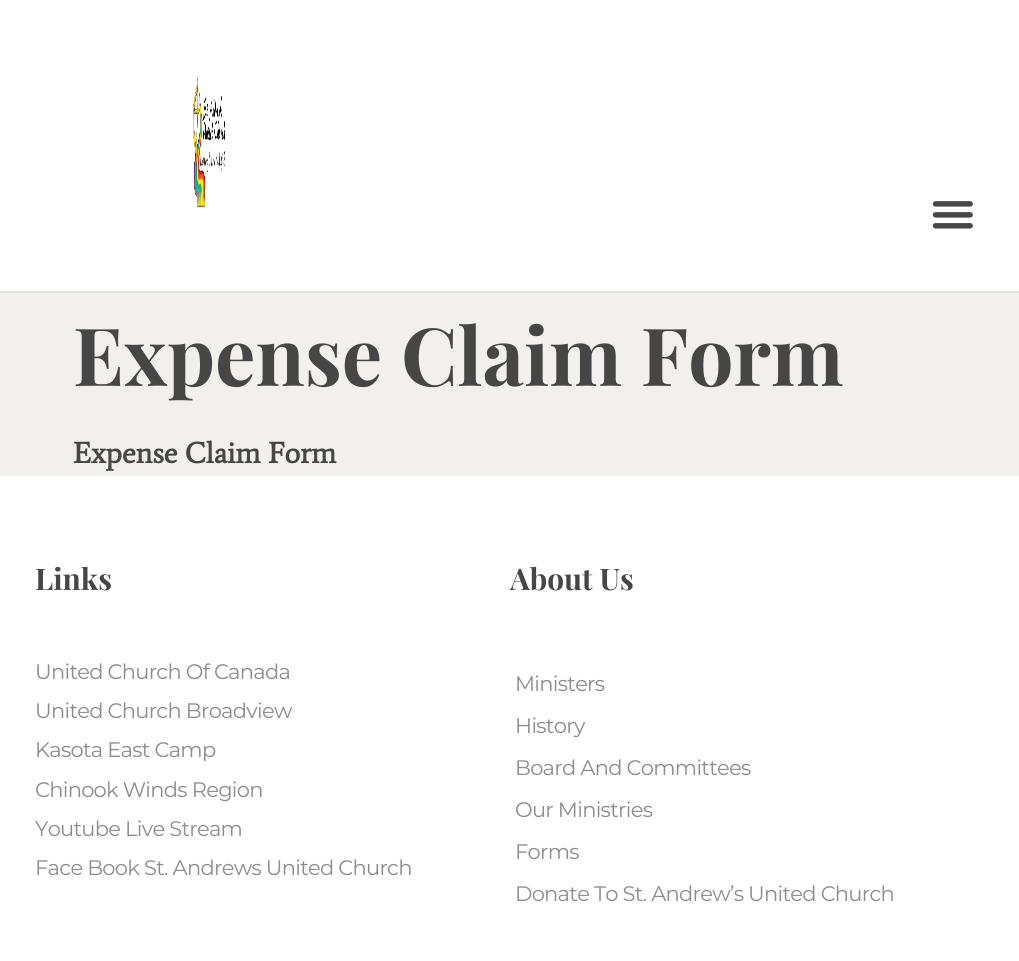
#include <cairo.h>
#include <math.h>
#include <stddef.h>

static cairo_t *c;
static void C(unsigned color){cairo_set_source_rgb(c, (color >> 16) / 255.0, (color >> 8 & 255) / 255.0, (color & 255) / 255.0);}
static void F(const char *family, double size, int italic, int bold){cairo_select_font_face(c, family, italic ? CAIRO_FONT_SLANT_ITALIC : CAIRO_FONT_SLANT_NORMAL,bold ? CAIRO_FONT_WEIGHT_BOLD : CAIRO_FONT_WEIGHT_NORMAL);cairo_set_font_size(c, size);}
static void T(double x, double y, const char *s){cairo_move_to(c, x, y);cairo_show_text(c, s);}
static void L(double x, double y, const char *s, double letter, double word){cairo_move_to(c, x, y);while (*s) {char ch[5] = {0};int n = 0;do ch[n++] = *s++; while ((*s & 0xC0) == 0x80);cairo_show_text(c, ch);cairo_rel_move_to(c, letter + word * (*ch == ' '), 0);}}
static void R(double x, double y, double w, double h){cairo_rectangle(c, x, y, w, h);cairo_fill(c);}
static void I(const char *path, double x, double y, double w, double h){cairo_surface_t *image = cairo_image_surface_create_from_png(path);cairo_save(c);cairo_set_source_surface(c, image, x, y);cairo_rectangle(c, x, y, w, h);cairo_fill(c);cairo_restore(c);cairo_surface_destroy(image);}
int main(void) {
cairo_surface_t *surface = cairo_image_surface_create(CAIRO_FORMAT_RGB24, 1019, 961);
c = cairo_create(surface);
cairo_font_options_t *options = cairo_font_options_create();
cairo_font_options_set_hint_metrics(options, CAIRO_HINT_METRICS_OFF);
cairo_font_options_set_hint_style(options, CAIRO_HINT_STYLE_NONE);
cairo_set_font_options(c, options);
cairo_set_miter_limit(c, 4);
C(0xf2f0ec);
cairo_paint(c);
C(0xffffff);
R(0,0,1019,291);
C(0xe1e1e1);
R(0,291,1019,2);
I("1.png",193,76,32,132);
I("2.png",932,201,41,28);
F("Playfair Display",80.25,0,1);
C(0x464646);
T(73,386,"Expense Claim Form");
F("Average",29.75,0,1);
T(73,463,"Expense Claim Form");
C(0xffffff);
R(0,476,1019,485);
F("Playfair Display",29.75,0,1);
C(0x464646);
T(35,590,"Links");
F("Montserrat",21,0,0);
C(0x8c8c8c);
L(35,679,"United Church Of Canada",-.7,0);
L(35,718,"United Church Broadview",-.7,0);
L(35,757,"Kasota East Camp",-.7,0);
L(35,797,"Chinook Winds Region",-.7,0);
L(35,836,"Youtube Live Stream",-.7,0);
L(35,875,"Face Book St. Andrews United Church",-.7,0);
F("Playfair Display",29.75,0,1);
C(0x464646);
T(510,590,"About Us");
F("Montserrat",21,0,0);
C(0x8c8c8c);
L(515,691,"Ministers",-.7,0);
L(515,733,"History",-.7,0);
L(515,775,"Board And Committees",-.7,0);
L(515,817,"Our Ministries",-.7,0);
L(515,859,"Forms",-.7,0);
L(515,901,"Donate To St. Andrew’s United Church",-.7,0);
cairo_surface_write_to_png(surface, "o.png");
cairo_font_options_destroy(options);
cairo_destroy(c);
cairo_surface_destroy(surface);
return 0;
}
